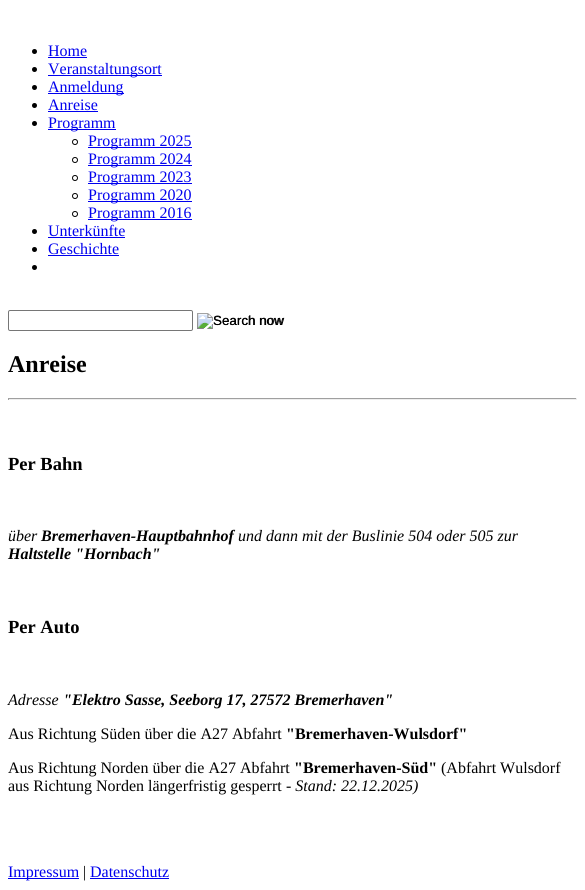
#include <cairo.h>
#include <math.h>
#include <stddef.h>

static cairo_t *c;
static void C(unsigned color){cairo_set_source_rgb(c, (color >> 16) / 255.0, (color >> 8 & 255) / 255.0, (color & 255) / 255.0);}
static void F(const char *family, double size, int italic, int bold){cairo_select_font_face(c, family, italic ? CAIRO_FONT_SLANT_ITALIC : CAIRO_FONT_SLANT_NORMAL,bold ? CAIRO_FONT_WEIGHT_BOLD : CAIRO_FONT_WEIGHT_NORMAL);cairo_set_font_size(c, size);}
static void T(double x, double y, const char *s){cairo_move_to(c, x, y);cairo_show_text(c, s);}
static void R(double x, double y, double w, double h){cairo_rectangle(c, x, y, w, h);cairo_fill(c);}
static void Q(double x, double y, double w, double h, double r){cairo_new_sub_path(c);cairo_arc(c, x + w - r, y + h - r, r, 0, M_PI / 2);cairo_arc(c, x + r, y + h - r, r, M_PI / 2, M_PI);cairo_arc(c, x + r, y + r, r, M_PI, 1.5 * M_PI);cairo_arc(c, x + w - r, y + r, r, 1.5 * M_PI, 2 * M_PI);cairo_close_path(c);}
static void I(const char *path, double x, double y, double w, double h){cairo_surface_t *image = cairo_image_surface_create_from_png(path);cairo_save(c);cairo_set_source_surface(c, image, x, y);cairo_rectangle(c, x, y, w, h);cairo_fill(c);cairo_restore(c);cairo_surface_destroy(image);}
int main(void) {
cairo_surface_t *surface = cairo_image_surface_create(CAIRO_FORMAT_RGB24, 585, 890);
c = cairo_create(surface);
cairo_font_options_t *options = cairo_font_options_create();
cairo_font_options_set_hint_metrics(options, CAIRO_HINT_METRICS_OFF);
cairo_font_options_set_hint_style(options, CAIRO_HINT_STYLE_NONE);
cairo_set_font_options(c, options);
cairo_set_miter_limit(c, 4);
C(0xffffff);
cairo_paint(c);
C(0x000000);
cairo_arc(c,34.5,51.5,2.5,0,2 * M_PI);
cairo_fill(c);
F("Liberation Serif",16,0,0);
C(0x0000ee);
T(48,56,"Home");
R(48,57,39,1);
C(0x000000);
cairo_new_path(c);
cairo_arc(c,34.5,69.5,2.5,0,2 * M_PI);
cairo_fill(c);
C(0x0000ee);
R(48,75,114,1);
T(48,74,"Veranstaltungsort");
C(0x000000);
cairo_new_path(c);
cairo_arc(c,34.5,87.5,2.5,0,2 * M_PI);
cairo_fill(c);
C(0x0000ee);
R(48,93,76,1);
T(48,92,"Anmeldung");
C(0x000000);
cairo_new_path(c);
cairo_arc(c,34.5,105.5,2.5,0,2 * M_PI);
cairo_fill(c);
C(0x0000ee);
T(48,110,"Anreise");
R(48,111,50,1);
C(0x000000);
cairo_new_path(c);
cairo_arc(c,34.5,123.5,2.5,0,2 * M_PI);
cairo_fill(c);
C(0x0000ee);
R(48,129,68,1);
T(48,128,"Programm");
cairo_new_path(c);
cairo_arc(c,75,142,2.5,0,2 * M_PI);
C(0x000000);
cairo_set_line_width(c,1);
cairo_stroke(c);
C(0x0000ee);
R(88,147,104,1);
T(88,146,"Programm 2025");
cairo_new_path(c);
cairo_arc(c,75,160,2.5,0,2 * M_PI);
C(0x000000);
cairo_stroke(c);
C(0x0000ee);
R(88,165,104,1);
T(88,164,"Programm 2024");
cairo_new_path(c);
cairo_arc(c,75,178,2.5,0,2 * M_PI);
C(0x000000);
cairo_stroke(c);
C(0x0000ee);
R(88,183,104,1);
T(88,182,"Programm 2023");
cairo_new_path(c);
cairo_arc(c,75,196,2.5,0,2 * M_PI);
C(0x000000);
cairo_stroke(c);
C(0x0000ee);
R(88,201,104,1);
T(88,200,"Programm 2020");
cairo_new_path(c);
cairo_arc(c,75,214,2.5,0,2 * M_PI);
C(0x000000);
cairo_stroke(c);
C(0x0000ee);
R(88,219,104,1);
T(88,218,"Programm 2016");
C(0x000000);
cairo_new_path(c);
cairo_arc(c,34.5,231.5,2.5,0,2 * M_PI);
cairo_fill(c);
C(0x0000ee);
T(48,236,"Unterkünfte");
R(48,237,77,1);
C(0x000000);
cairo_new_path(c);
cairo_arc(c,34.5,249.5,2.5,0,2 * M_PI);
cairo_fill(c);
C(0x0000ee);
T(48,254,"Geschichte");
R(48,255,71,1);
C(0x000000);
cairo_new_path(c);
cairo_arc(c,34.5,267.5,2.5,0,2 * M_PI);
cairo_fill(c);
Q(8.5,310.5,184,20,1.5);
C(0x767676);
cairo_stroke(c);
I("1.png",197,313,86,16);
F("Liberation Sans",13.5,0,0);
C(0x000000);
T(213,325,"Search now");
F("Liberation Serif",24,0,1);
T(8,372,"Anreise");
C(0x9f9f9f);
R(8,398,569,1);
C(0xeeeeee);
R(576,398,1,2);
R(8,399,569,1);
C(0x9f9f9f);
R(8,398,1,2);
F("Liberation Serif",18.5,0,1);
C(0x000000);
T(8,470,"Per Bahn");
F("Liberation Serif",16,1,0);
T(8,541,"über");
F("Liberation Serif",16,1,1);
T(41,541,"Bremerhaven-Hauptbahnhof");
F("Liberation Serif",16,1,0);
T(238,541,"und dann mit der Buslinie 504 oder 505 zur");
F("Liberation Serif",16,1,1);
T(8,559,"Haltstelle \"Hornbach\"");
F("Liberation Serif",18.5,0,1);
T(8,633,"Per Auto");
F("Liberation Serif",16,1,0);
T(8,705,"Adresse");
F("Liberation Serif",16,1,1);
T(63,705,"\"Elektro Sasse, Seeborg 17, 27572 Bremerhaven\"");
F("Liberation Serif",16,0,0);
T(8,739,"Aus Richtung Süden über die A27 Abfahrt");
F("Liberation Serif",16,0,1);
T(286,739,"\"Bremerhaven-Wulsdorf\"");
F("Liberation Serif",16,0,0);
T(8,773,"Aus Richtung Norden über die A27 Abfahrt");
F("Liberation Serif",16,0,1);
T(294,773,"\"Bremerhaven-Süd\"");
F("Liberation Serif",16,0,0);
T(441,773,"(Abfahrt Wulsdorf");
T(8,791,"aus Richtung Norden längerfristig gesperrt");
F("Liberation Serif",16,1,0);
T(286,791,"- Stand: 22.12.2025)");
C(0x0000ee);
R(8,878,71,1);
F("Liberation Serif",16,0,0);
T(8,877,"Impressum");
C(0x000000);
T(83,877,"|");
C(0x0000ee);
T(90,877,"Datenschutz");
R(90,878,79,1);
cairo_surface_write_to_png(surface, "o.png");
cairo_font_options_destroy(options);
cairo_destroy(c);
cairo_surface_destroy(surface);
return 0;
}
